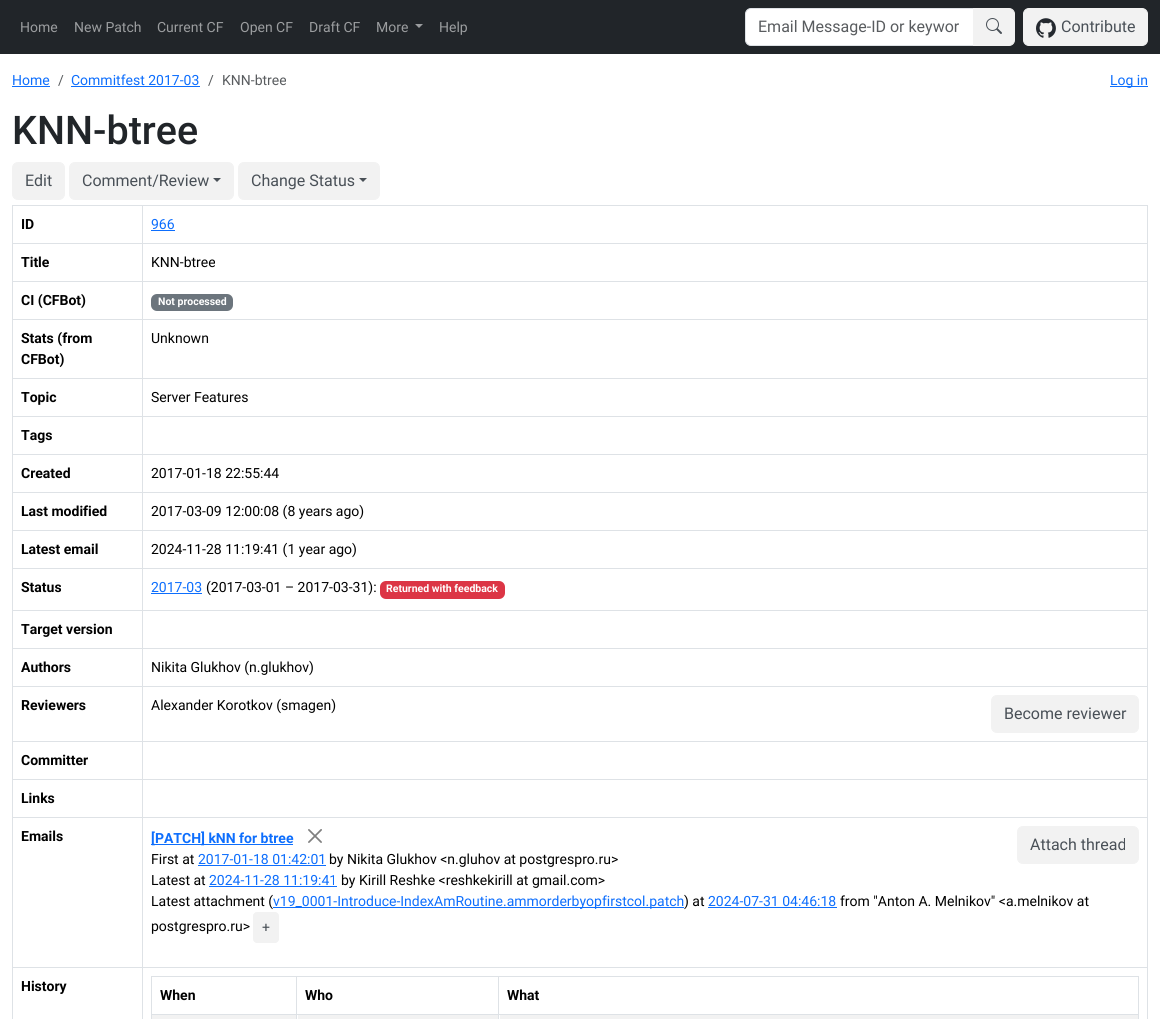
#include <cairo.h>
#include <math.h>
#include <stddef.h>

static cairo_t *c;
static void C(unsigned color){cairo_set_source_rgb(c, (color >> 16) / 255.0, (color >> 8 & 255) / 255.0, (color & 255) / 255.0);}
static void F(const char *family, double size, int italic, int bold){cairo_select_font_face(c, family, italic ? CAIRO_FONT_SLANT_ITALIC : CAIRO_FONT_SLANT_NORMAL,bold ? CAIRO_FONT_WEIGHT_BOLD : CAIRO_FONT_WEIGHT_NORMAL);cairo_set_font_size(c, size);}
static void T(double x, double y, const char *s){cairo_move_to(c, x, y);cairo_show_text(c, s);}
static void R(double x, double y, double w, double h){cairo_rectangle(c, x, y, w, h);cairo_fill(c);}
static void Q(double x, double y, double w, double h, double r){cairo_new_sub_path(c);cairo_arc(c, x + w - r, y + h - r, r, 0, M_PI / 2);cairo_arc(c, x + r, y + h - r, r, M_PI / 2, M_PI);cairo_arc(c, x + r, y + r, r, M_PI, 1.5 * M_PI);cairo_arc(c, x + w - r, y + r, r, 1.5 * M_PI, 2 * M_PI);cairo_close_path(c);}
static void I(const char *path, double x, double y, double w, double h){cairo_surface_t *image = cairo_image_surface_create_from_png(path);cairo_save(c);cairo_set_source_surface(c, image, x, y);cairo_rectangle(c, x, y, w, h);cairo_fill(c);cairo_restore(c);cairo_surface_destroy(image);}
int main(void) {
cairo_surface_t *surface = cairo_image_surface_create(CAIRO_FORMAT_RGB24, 1160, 1019);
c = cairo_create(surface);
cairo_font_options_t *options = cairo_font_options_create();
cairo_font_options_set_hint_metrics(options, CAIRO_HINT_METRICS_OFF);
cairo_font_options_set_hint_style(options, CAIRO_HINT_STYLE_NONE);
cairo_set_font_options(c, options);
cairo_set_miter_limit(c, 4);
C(0xffffff);
cairo_paint(c);
C(0x212529);
R(0,0,1160,54);
F("Roboto",14,0,0);
C(0x9b9d9f);
T(20,32,"Home");
T(74,32,"New Patch");
T(157,32,"Current CF");
T(240,32,"Open CF");
T(309,32,"Draft CF");
T(376,32,"More");
cairo_new_path(c);
cairo_move_to(c,415,24);
cairo_line_to(c,423,24);
cairo_line_to(c,419,28);
cairo_close_path(c);
cairo_fill(c);
T(439,32,"Help");
C(0xffffff);
cairo_new_path(c);
cairo_move_to(c,751,8.5);
cairo_line_to(c,973.5,8.5);
cairo_line_to(c,973.5,45.5);
cairo_line_to(c,751,45.5);
cairo_curve_to(c,748,45.5,745.5,43,745.5,40);
cairo_line_to(c,745.5,14);
cairo_curve_to(c,745.5,11,748,8.5,751,8.5);
cairo_close_path(c);
cairo_fill_preserve(c);
C(0xdee2e6);
cairo_set_line_width(c,1);
cairo_stroke(c);
F("Roboto",16,0,0);
C(0x595c5f);
T(758,32,"Email Message-ID or keywor");
C(0xf2f2f2);
cairo_new_path(c);
cairo_move_to(c,973.5,8.5);
cairo_line_to(c,1009,8.5);
cairo_curve_to(c,1012,8.5,1014.5,11,1014.5,14);
cairo_line_to(c,1014.5,40);
cairo_curve_to(c,1014.5,43,1012,45.5,1009,45.5);
cairo_line_to(c,973.5,45.5);
cairo_close_path(c);
cairo_fill_preserve(c);
cairo_stroke(c);
I("1.png",986,18,16,16);
Q(1023.5,8.5,124,37,5.5);
cairo_fill_preserve(c);
cairo_stroke(c);
I("2.png",1036,18,20,20);
C(0x495057);
T(1061,32,"Contribute");
F("Roboto",14,0,0);
C(0x0d6efd);
T(12,85,"Home");
R(12,86,38,1);
C(0x595c5f);
T(58,85,"/");
C(0x0d6efd);
T(71,85,"Commitfest 2017-03");
R(71,86,129,1);
C(0x595c5f);
T(208,85,"/");
T(222,85,"KNN-btree");
C(0x0d6efd);
R(1110,86,38,1);
T(1110,85,"Log in");
F("Roboto Medium",39.5,0,0);
C(0x212529);
T(12,144,"KNN-btree");
C(0xf2f2f2);
Q(12.5,162.5,52,37,5.5);
cairo_fill_preserve(c);
cairo_stroke(c);
F("Roboto",16,0,0);
C(0x495057);
T(25,186,"Edit");
C(0xf2f2f2);
Q(69.5,162.5,164,37,5.5);
cairo_fill_preserve(c);
cairo_stroke(c);
C(0x495057);
T(82,186,"Comment/Review");
cairo_new_path(c);
cairo_move_to(c,213,178);
cairo_line_to(c,221,178);
cairo_line_to(c,217,182);
cairo_close_path(c);
cairo_fill(c);
C(0xf2f2f2);
Q(238.5,162.5,141,37,5.5);
cairo_fill_preserve(c);
cairo_stroke(c);
C(0x495057);
T(251,186,"Change Status");
cairo_new_path(c);
cairo_move_to(c,359,178);
cairo_line_to(c,367,178);
cairo_line_to(c,363,182);
cairo_close_path(c);
cairo_fill(c);
C(0xdee2e6);
R(12,205,1136,1);
F("Roboto",14,0,1);
C(0x000000);
T(21,229,"ID");
F("Roboto",14,0,0);
C(0x0d6efd);
T(151,229,"966");
R(151,230,24,1);
C(0xdee2e6);
R(12,243,1136,1);
F("Roboto",14,0,1);
C(0x000000);
T(21,267,"Title");
F("Roboto",14,0,0);
T(151,267,"KNN-btree");
C(0xdee2e6);
R(12,281,1136,1);
F("Roboto",14,0,1);
C(0x000000);
T(21,305,"CI (CFBot)");
C(0x6c757d);
Q(151,294,82,17,6);
cairo_fill(c);
F("Roboto",10.5,0,1);
C(0xffffff);
T(158,305,"Not processed");
C(0xdee2e6);
R(12,319,1136,1);
F("Roboto",14,0,1);
C(0x000000);
T(21,343,"Stats (from");
T(21,364,"CFBot)");
F("Roboto",14,0,0);
T(151,343,"Unknown");
C(0xdee2e6);
R(12,378,1136,1);
F("Roboto",14,0,1);
C(0x000000);
T(21,402,"Topic");
F("Roboto",14,0,0);
T(151,402,"Server Features");
C(0xdee2e6);
R(12,416,1136,1);
F("Roboto",14,0,1);
C(0x000000);
T(21,440,"Tags");
C(0xdee2e6);
R(12,454,1136,1);
C(0x000000);
T(21,478,"Created");
F("Roboto",14,0,0);
T(151,478,"2017-01-18 22:55:44");
C(0xdee2e6);
R(12,492,1136,1);
F("Roboto",14,0,1);
C(0x000000);
T(21,516,"Last modified");
F("Roboto",14,0,0);
T(151,516,"2017-03-09 12:00:08 (8 years ago)");
C(0xdee2e6);
R(12,530,1136,1);
F("Roboto",14,0,1);
C(0x000000);
T(21,554,"Latest email");
F("Roboto",14,0,0);
T(151,554,"2024-11-28 11:19:41 (1 year ago)");
C(0xdee2e6);
R(12,568,1136,1);
F("Roboto",14,0,1);
C(0x000000);
T(21,592,"Status");
F("Roboto",14,0,0);
C(0x0d6efd);
T(151,592,"2017-03");
R(151,593,51,1);
C(0x000000);
T(206,592,"(2017-03-01 – 2017-03-31):");
C(0xdc3545);
Q(380,581,125,18,6);
cairo_fill(c);
F("Roboto",10.5,0,1);
C(0xffffff);
T(386,592,"Returned with feedback");
C(0xdee2e6);
R(12,610,1136,1);
F("Roboto",14,0,1);
C(0x000000);
T(21,634,"Target version");
C(0xdee2e6);
R(12,648,1136,1);
C(0x000000);
T(21,672,"Authors");
F("Roboto",14,0,0);
T(151,672,"Nikita Glukhov (n.glukhov)");
C(0xdee2e6);
R(12,686,1136,1);
F("Roboto",14,0,1);
C(0x000000);
T(21,710,"Reviewers");
F("Roboto",14,0,0);
T(151,710,"Alexander Korotkov (smagen)");
C(0xf2f2f2);
Q(991.5,695.5,147,37,5.5);
cairo_fill_preserve(c);
cairo_stroke(c);
F("Roboto",16,0,0);
C(0x495057);
T(1004,719,"Become reviewer");
C(0xdee2e6);
R(12,741,1136,1);
F("Roboto",14,0,1);
C(0x000000);
T(21,765,"Committer");
C(0xdee2e6);
R(12,779,1136,1);
C(0x000000);
T(21,803,"Links");
C(0xdee2e6);
R(12,817,1136,1);
C(0x000000);
T(21,841,"Emails");
C(0x0d6efd);
R(151,844,142,1);
T(151,843,"[PATCH] kNN for btree");
I("3.png",308,829,14,14);
F("Roboto",14,0,0);
C(0x000000);
T(151,864,"First at");
C(0x0d6efd);
T(198,864,"2017-01-18 01:42:01");
R(198,865,128,1);
C(0x000000);
T(329,864,"by Nikita Glukhov <n.gluhov at postgrespro.ru>");
T(151,885,"Latest at");
C(0x0d6efd);
T(209,885,"2024-11-28 11:19:41");
R(209,886,128,1);
C(0x000000);
T(341,885,"by Kirill Reshke <reshkekirill at gmail.com>");
T(151,906,"Latest attachment (");
C(0x0d6efd);
R(273,907,411,1);
T(273,906,"v19_0001-Introduce-IndexAmRoutine.ammorderbyopfirstcol.patch");
C(0x000000);
T(684,906,") at");
C(0x0d6efd);
T(708,906,"2024-07-31 04:46:18");
R(708,907,129,1);
C(0x000000);
T(840,906,"from \"Anton A. Melnikov\" <a.melnikov at");
T(151,931,"postgrespro.ru>");
C(0xf2f2f2);
Q(253.5,912.5,25,30,3.5);
cairo_fill_preserve(c);
cairo_stroke(c);
C(0x495057);
T(262,932,"+");
C(0xf2f2f2);
Q(1017.5,826.5,121,37,5.5);
cairo_fill_preserve(c);
cairo_stroke(c);
F("Roboto",16,0,0);
C(0x495057);
T(1030,850,"Attach thread");
C(0xdee2e6);
R(12,967,1136,1);
R(12,205,1,814);
F("Roboto",14,0,1);
C(0x000000);
T(21,991,"History");
C(0xdee2e6);
R(1147,205,1,814);
R(142,205,1,814);
R(151,1014,988,1);
C(0xf2f2f2);
R(152,1015,144,4);
C(0xdee2e6);
R(151,976,988,1);
R(151,976,1,43);
C(0xf2f2f2);
R(298,1015,200,4);
C(0xdee2e6);
R(296,976,1,43);
C(0xf2f2f2);
R(500,1015,638,4);
C(0xdee2e6);
R(1138,976,1,43);
R(498,976,1,43);
C(0x000000);
T(160,1000,"When");
T(305,1000,"Who");
T(507,1000,"What");
cairo_surface_write_to_png(surface, "o.png");
cairo_font_options_destroy(options);
cairo_destroy(c);
cairo_surface_destroy(surface);
return 0;
}
